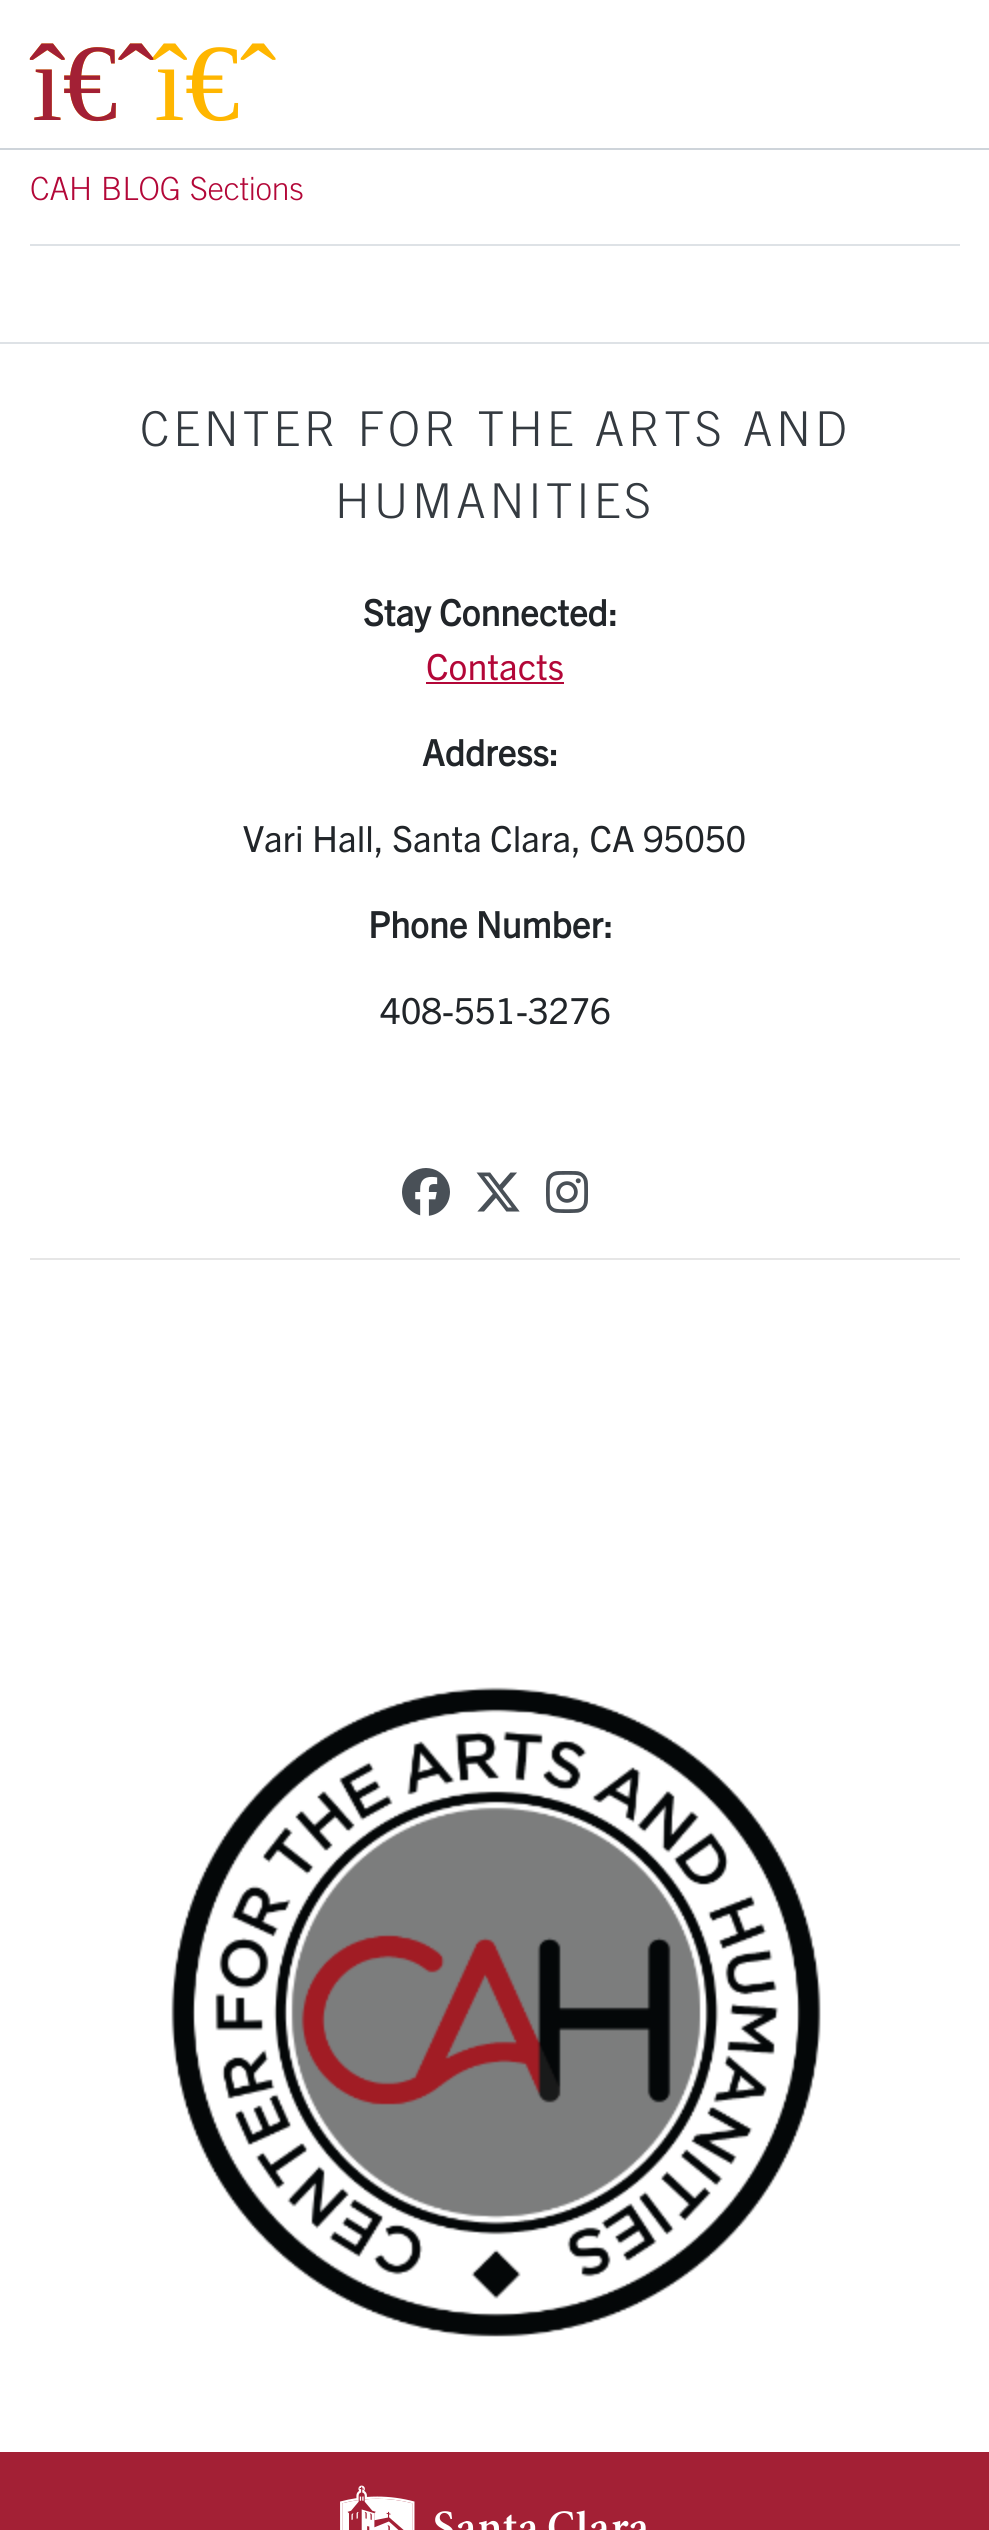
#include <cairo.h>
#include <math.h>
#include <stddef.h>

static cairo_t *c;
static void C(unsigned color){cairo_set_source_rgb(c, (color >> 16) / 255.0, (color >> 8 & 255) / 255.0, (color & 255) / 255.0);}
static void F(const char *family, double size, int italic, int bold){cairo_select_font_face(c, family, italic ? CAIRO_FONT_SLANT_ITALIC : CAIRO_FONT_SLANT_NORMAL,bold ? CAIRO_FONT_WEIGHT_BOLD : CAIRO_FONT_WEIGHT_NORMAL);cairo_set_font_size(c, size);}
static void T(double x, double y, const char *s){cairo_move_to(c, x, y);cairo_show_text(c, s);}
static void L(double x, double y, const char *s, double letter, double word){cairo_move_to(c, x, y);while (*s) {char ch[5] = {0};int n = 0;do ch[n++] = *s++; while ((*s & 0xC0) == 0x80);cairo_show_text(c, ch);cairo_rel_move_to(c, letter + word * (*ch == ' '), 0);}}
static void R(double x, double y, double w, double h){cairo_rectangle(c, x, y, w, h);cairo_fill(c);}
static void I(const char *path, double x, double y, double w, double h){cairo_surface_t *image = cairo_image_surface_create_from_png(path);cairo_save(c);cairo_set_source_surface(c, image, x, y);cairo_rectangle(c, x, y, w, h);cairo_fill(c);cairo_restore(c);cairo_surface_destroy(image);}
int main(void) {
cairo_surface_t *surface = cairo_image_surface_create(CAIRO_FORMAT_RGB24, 989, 2530);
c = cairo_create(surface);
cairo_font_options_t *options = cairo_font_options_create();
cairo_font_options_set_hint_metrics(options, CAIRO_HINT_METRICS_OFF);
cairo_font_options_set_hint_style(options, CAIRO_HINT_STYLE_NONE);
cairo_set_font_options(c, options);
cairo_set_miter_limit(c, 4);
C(0xffffff);
cairo_paint(c);
C(0xced4da);
R(0,148,989,2);
F("Liberation Serif",110,0,0);
C(0xffb600);
T(32,120,"î€ˆî€ˆ");
C(0xa32035);
T(32,120,"î€ˆ");
C(0xdee2e6);
R(30,244,930,2);
F("Trade Gothic Light",32,0,0);
C(0xb30738);
T(30,200,"CAH BLOG Sections");
C(0xdee2e6);
R(0,342,989,2);
F("Trade Gothic Light",48,0,0);
C(0x343a40);
L(140,446,"CENTER FOR THE ARTS AND",4,0);
L(335,518,"HUMANITIES",4,0);
F("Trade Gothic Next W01",36,0,1);
C(0x212529);
T(363,626,"Stay Connected:");
F("Trade Gothic Next W01",36,0,0);
C(0xb30738);
T(426,680,"Contacts");
R(426,682,138,2);
F("Trade Gothic Next W01",36,0,1);
C(0x212529);
T(422,766,"Address:");
F("Trade Gothic Next W01",36,0,0);
T(243,852,"Vari Hall, Santa Clara, CA 95050");
F("Trade Gothic Next W01",36,0,1);
T(368,938,"Phone Number:");
F("Trade Gothic Next W01",36,0,0);
T(380,1024,"408-551-3276");
I("1.png",402,1168,48,48);
I("2.png",476,1172,44,40);
I("3.png",546,1171,42,42);
C(0xe6e6e6);
R(30,1258,930,2);
I("4.png",171,1687,650,650);
C(0xa32035);
R(0,2452,989,78);
I("5.png",340,2485,306,45);
cairo_surface_write_to_png(surface, "o.png");
cairo_font_options_destroy(options);
cairo_destroy(c);
cairo_surface_destroy(surface);
return 0;
}
